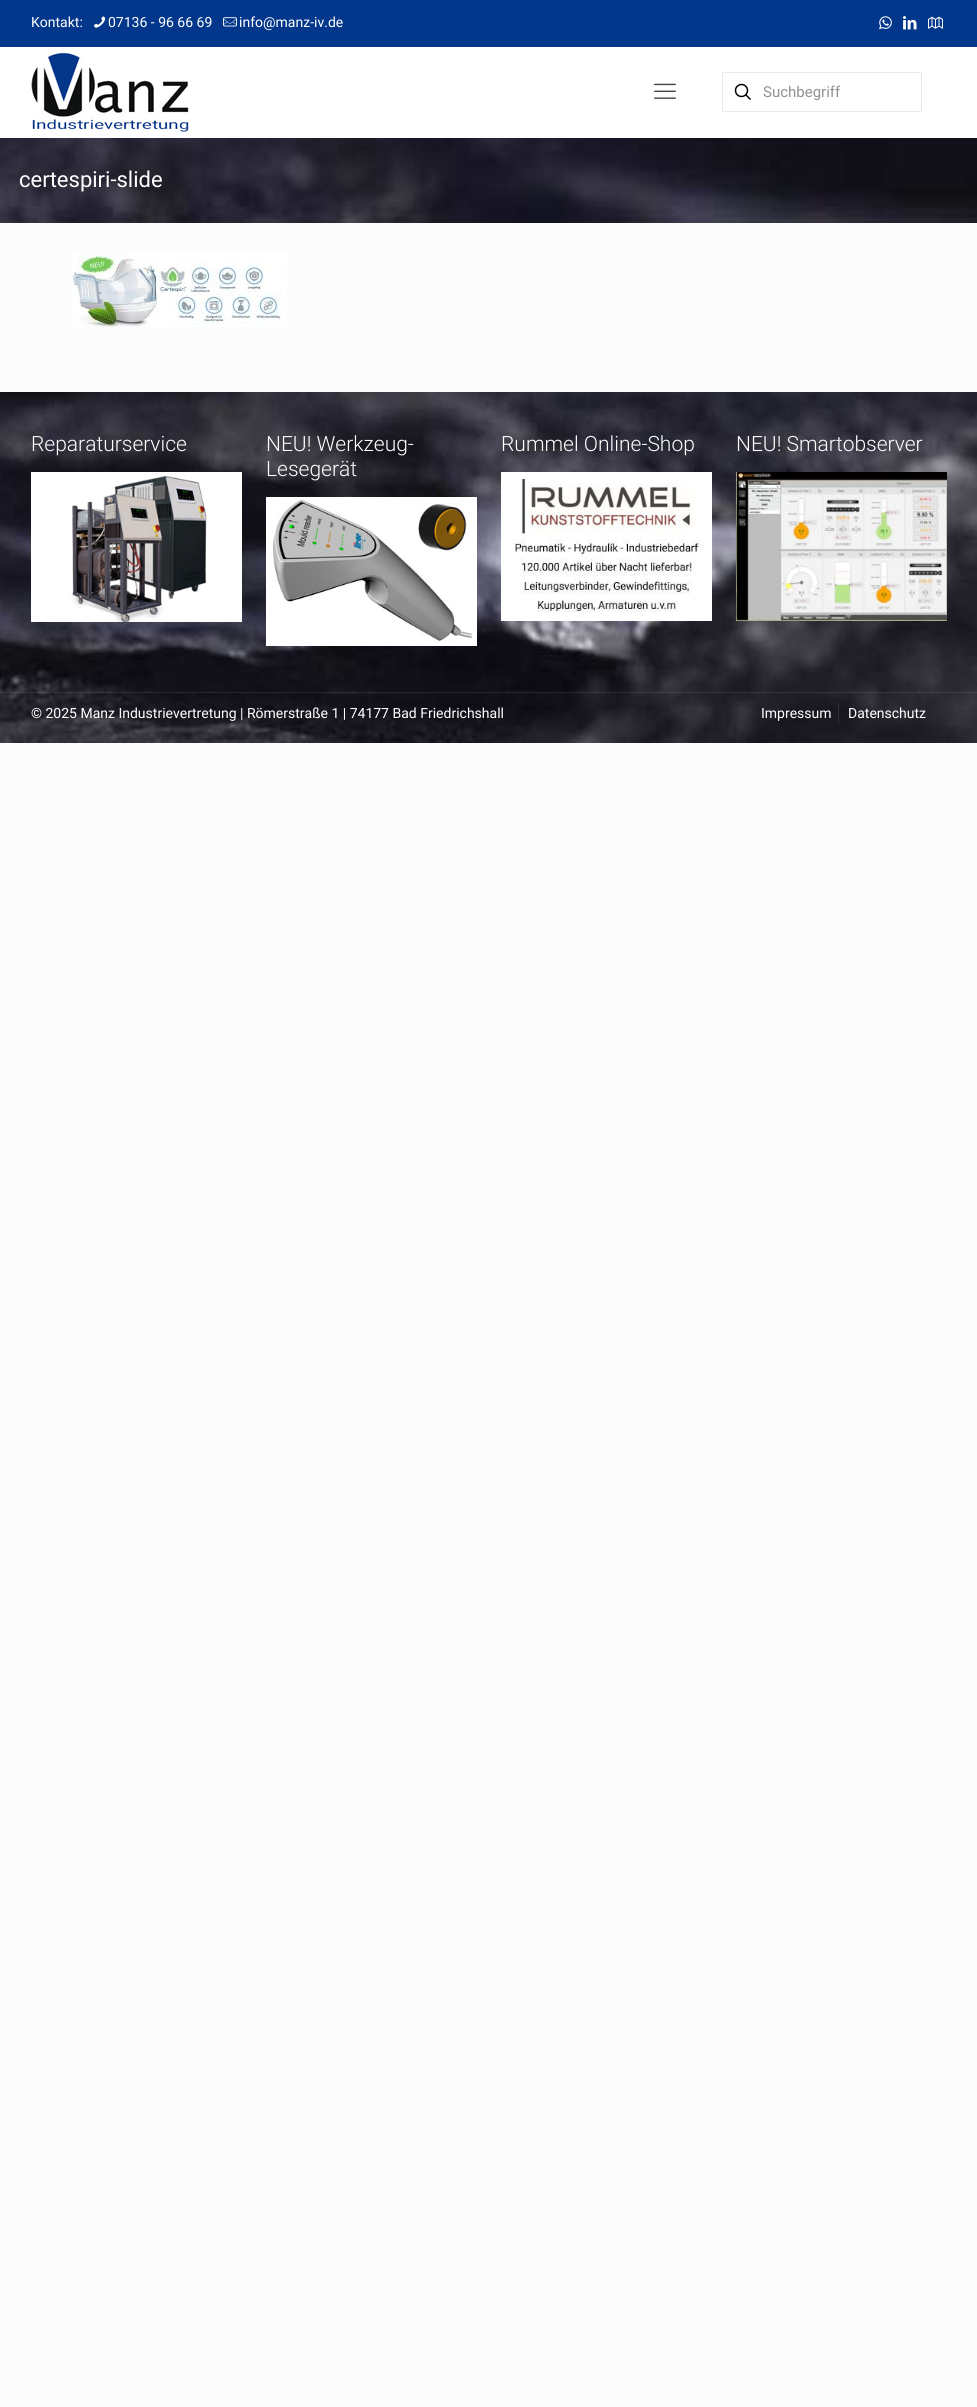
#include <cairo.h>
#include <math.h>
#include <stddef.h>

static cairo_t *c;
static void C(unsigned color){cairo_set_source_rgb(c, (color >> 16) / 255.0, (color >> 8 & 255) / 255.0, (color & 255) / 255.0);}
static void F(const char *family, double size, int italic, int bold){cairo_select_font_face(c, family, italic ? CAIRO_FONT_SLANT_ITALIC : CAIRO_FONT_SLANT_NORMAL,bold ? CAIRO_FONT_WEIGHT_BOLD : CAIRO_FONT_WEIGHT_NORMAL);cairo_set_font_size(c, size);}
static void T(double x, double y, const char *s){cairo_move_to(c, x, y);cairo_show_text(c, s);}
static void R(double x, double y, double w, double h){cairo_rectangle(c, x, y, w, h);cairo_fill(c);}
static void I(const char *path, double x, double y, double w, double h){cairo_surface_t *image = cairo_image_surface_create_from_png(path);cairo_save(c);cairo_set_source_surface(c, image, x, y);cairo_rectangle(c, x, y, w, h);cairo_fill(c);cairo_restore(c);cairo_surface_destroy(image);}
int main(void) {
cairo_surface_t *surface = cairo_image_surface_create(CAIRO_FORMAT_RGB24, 977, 2407);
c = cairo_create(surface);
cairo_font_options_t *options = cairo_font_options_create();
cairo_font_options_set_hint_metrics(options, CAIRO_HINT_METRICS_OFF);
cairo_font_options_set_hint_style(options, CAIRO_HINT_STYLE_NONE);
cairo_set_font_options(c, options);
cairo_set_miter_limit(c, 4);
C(0xfcfcfc);
cairo_paint(c);
I("1.png",0,138,977,85);
C(0x03378b);
R(0,0,977,47);
F("Heebo",14,0,0);
C(0xffffff);
T(31,27,"Kontakt:");
I("2.png",94,16,12,12);
T(108,27,"07136 - 96 66 69");
I("3.png",223,17,14,10);
T(239,27,"info@manz-iv.de");
I("4.png",879,16,13,14);
I("5.png",903,16,14,14);
I("6.png",928,16,15,13);
R(0,47,977,91);
I("7.png",31,52,158,80);
I("8.png",654,83,22,16);
cairo_rectangle(c,722.5,72.5,199,39);
C(0xebebeb);
cairo_set_line_width(c,1);
cairo_stroke(c);
cairo_arc(c,741.5,90.5,6,0,2 * M_PI);
C(0x000000);
cairo_set_line_width(c,1.5);
cairo_stroke(c);
cairo_new_path(c);
cairo_move_to(c,745.5,94.5);
cairo_line_to(c,750.5,99.5);
cairo_stroke(c);
F("Heebo",15,0,0);
C(0x929292);
T(763,97,"Suchbegriff");
F("Heebo",22,0,0);
C(0xffffff);
T(19,187,"certespiri-slide");
I("9.png",71,253,216,74);
I("10.png",0,392,977,351);
F("Heebo Light",21,0,0);
T(31,451,"Reparaturservice");
I("11.png",31,472,211,150);
T(266,451,"NEU! Werkzeug-");
T(266,476,"Lesegerät");
I("12.png",266,497,211,149);
T(501,451,"Rummel Online-Shop");
I("13.png",501,472,211,149);
T(736,451,"NEU! Smartobserver");
I("14.png",736,472,211,149);
cairo_set_source_rgba(c,1,1,1,0.1);
R(0,692,977,1);
F("Heebo",14,0,0);
C(0xffffff);
T(31,718,"© 2025 Manz Industrievertretung | Römerstraße 1 | 74177 Bad Friedrichshall");
cairo_set_source_rgba(c,1,1,1,0.1);
R(838,703,1,21);
C(0xffffff);
T(761,718,"Impressum");
T(848,718,"Datenschutz");
cairo_surface_write_to_png(surface, "o.png");
cairo_font_options_destroy(options);
cairo_destroy(c);
cairo_surface_destroy(surface);
return 0;
}
